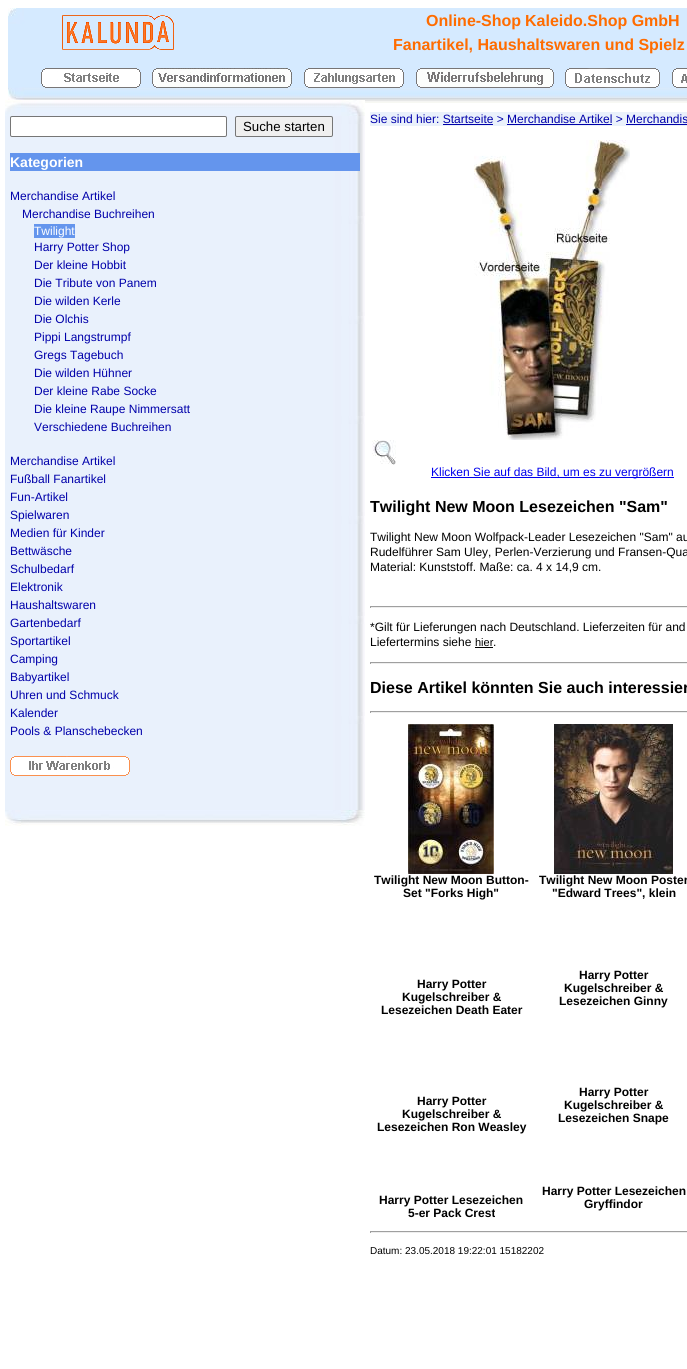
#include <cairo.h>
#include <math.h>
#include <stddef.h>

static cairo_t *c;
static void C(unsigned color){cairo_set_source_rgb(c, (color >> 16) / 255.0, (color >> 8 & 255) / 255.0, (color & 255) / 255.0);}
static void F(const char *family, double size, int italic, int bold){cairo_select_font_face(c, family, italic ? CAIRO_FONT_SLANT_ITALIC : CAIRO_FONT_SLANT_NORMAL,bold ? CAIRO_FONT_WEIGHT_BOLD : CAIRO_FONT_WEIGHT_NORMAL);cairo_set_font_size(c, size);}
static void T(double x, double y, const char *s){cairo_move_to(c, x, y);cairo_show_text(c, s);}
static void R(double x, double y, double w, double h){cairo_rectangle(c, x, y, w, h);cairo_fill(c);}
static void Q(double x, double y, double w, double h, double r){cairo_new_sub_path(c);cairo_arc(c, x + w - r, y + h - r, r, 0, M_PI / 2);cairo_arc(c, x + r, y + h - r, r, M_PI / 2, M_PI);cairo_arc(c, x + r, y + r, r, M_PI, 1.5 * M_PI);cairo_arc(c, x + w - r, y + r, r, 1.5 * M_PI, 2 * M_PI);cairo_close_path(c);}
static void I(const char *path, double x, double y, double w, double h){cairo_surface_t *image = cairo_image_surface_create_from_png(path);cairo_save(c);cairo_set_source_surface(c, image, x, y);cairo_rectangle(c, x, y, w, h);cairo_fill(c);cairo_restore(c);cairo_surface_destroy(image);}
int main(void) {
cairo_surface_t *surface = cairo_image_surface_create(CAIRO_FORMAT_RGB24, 687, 1369);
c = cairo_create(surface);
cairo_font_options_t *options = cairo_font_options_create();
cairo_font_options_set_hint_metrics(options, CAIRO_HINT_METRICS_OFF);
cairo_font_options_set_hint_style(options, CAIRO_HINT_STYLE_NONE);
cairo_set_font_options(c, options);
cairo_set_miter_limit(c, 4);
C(0xffffff);
cairo_paint(c);
I("1.png",8,8,679,95);
I("2.png",62,15,112,35);
F("Liberation Sans",16,0,1);
C(0xff6c00);
T(426,26,"Online-Shop");
T(525,26,"Kaleido.Shop GmbH");
T(393,50,"Fanartikel, Haushaltswaren und Spielz");
I("3.png",41,68,100,20);
I("4.png",152,68,140,20);
I("5.png",304,68,100,20);
I("6.png",416,68,138,20);
I("7.png",565,68,95,20);
I("8.png",672,68,15,20);
I("9.png",5,100,360,16);
I("10.png",5,116,360,694);
C(0xffffff);
Q(10.5,116.5,216,20,1.5);
cairo_fill_preserve(c);
C(0x767676);
cairo_set_line_width(c,1);
cairo_stroke(c);
C(0xefefef);
Q(235.5,116.5,97,20,1.5);
cairo_fill_preserve(c);
C(0x767676);
cairo_stroke(c);
F("Liberation Sans",13.25,0,0);
C(0x000000);
T(243,131,"Suche starten");
C(0x6495ed);
R(10,153,350,18);
F("Liberation Sans",14,0,1);
C(0xffffff);
T(10,167,"Kategorien");
F("Liberation Sans",12,0,0);
C(0x0000aa);
T(10,200,"Merchandise Artikel");
T(22,218,"Merchandise Buchreihen");
C(0x6495ed);
R(34,224,41,14);
C(0xffffff);
T(34,235,"Twilight");
C(0x0000aa);
T(34,251,"Harry Potter Shop");
T(34,269,"Der kleine Hobbit");
T(34,287,"Die Tribute von Panem");
T(34,305,"Die wilden Kerle");
T(34,323,"Die Olchis");
T(34,341,"Pippi Langstrumpf");
T(34,359,"Gregs Tagebuch");
T(34,377,"Die wilden Hühner");
T(34,395,"Der kleine Rabe Socke");
T(34,413,"Die kleine Raupe Nimmersatt");
T(34,431,"Verschiedene Buchreihen");
T(10,465,"Merchandise Artikel");
T(10,483,"Fußball Fanartikel");
T(10,501,"Fun-Artikel");
T(10,519,"Spielwaren");
T(10,537,"Medien für Kinder");
T(10,555,"Bettwäsche");
T(10,573,"Schulbedarf");
T(10,591,"Elektronik");
T(10,609,"Haushaltswaren");
T(10,627,"Gartenbedarf");
T(10,645,"Sportartikel");
T(10,663,"Camping");
T(10,681,"Babyartikel");
T(10,699,"Uhren und Schmuck");
T(10,717,"Kalender");
T(10,735,"Pools & Planschebecken");
I("11.png",10,756,120,20);
I("12.png",5,810,360,16);
C(0xeaf1fb);
R(370,112,317,14);
C(0x0000aa);
T(370,123,"Sie sind hier: Startseite > Merchandise Artikel > Merchandis");
R(443,124,50,1);
R(507,124,105,1);
R(626,124,61,1);
I("13.png",474,140,156,300);
I("14.png",372,440,24,25);
C(0x0000ee);
R(431,477,243,1);
T(431,476,"Klicken Sie auf das Bild, um es zu vergrößern");
F("Liberation Sans",16,0,1);
C(0x000000);
T(370,512,"Twilight New Moon Lesezeichen \"Sam\"");
F("Liberation Sans",12,0,0);
T(370,541,"Twilight New Moon Wolfpack-Leader Lesezeichen \"Sam\" au");
T(370,556,"Rudelführer Sam Uley, Perlen-Verzierung und Fransen-Qua");
T(370,571,"Material: Kunststoff. Maße: ca. 4 x 14,9 cm.");
C(0x9f9f9f);
R(370,606,317,1);
C(0xeeeeee);
R(370,607,317,1);
C(0x9f9f9f);
R(370,606,1,2);
C(0x000000);
T(370,631,"*Gilt für Lieferungen nach Deutschland. Lieferzeiten für and");
T(370,646,"Liefertermins siehe");
F("Liberation Sans",11,0,0);
T(475,646,"hier");
R(475,647,18,1);
F("Liberation Sans",12,0,0);
T(493,646,".");
C(0x9f9f9f);
R(370,662,317,1);
C(0xeeeeee);
R(370,663,317,1);
C(0x9f9f9f);
R(370,662,1,2);
F("Liberation Sans",16,0,1);
C(0x000000);
T(370,693,"Diese Artikel könnten Sie auch interessier");
C(0x9f9f9f);
R(370,711,317,1);
C(0xeeeeee);
R(370,712,317,1);
C(0x9f9f9f);
R(370,711,1,2);
I("15.png",408,724,86,150);
F("Liberation Sans",12,0,1);
C(0x000000);
T(374,884,"Twilight New Moon Button-");
T(403,897,"Set \"Forks High\"");
I("16.png",554,724,119,150);
T(539,884,"Twilight New Moon Poster");
T(552,897,"\"Edward Trees\", klein");
T(417,988,"Harry Potter");
T(402,1001,"Kugelschreiber &");
T(381,1014,"Lesezeichen Death Eater");
T(579,979,"Harry Potter");
T(564,992,"Kugelschreiber &");
T(559,1005,"Lesezeichen Ginny");
T(417,1105,"Harry Potter");
T(402,1118,"Kugelschreiber &");
T(377,1131,"Lesezeichen Ron Weasley");
T(579,1096,"Harry Potter");
T(564,1109,"Kugelschreiber &");
T(558,1122,"Lesezeichen Snape");
T(379,1204,"Harry Potter Lesezeichen");
T(408,1217,"5-er Pack Crest");
T(542,1195,"Harry Potter Lesezeichen");
T(584,1208,"Gryffindor");
C(0x9f9f9f);
R(370,1231,317,1);
C(0xeeeeee);
R(370,1232,317,1);
C(0x9f9f9f);
R(370,1231,1,2);
F("Liberation Sans",10,0,0);
C(0x000000);
T(370,1254,"Datum: 23.05.2018 19:22:01 15182202");
cairo_surface_write_to_png(surface, "o.png");
cairo_font_options_destroy(options);
cairo_destroy(c);
cairo_surface_destroy(surface);
return 0;
}
